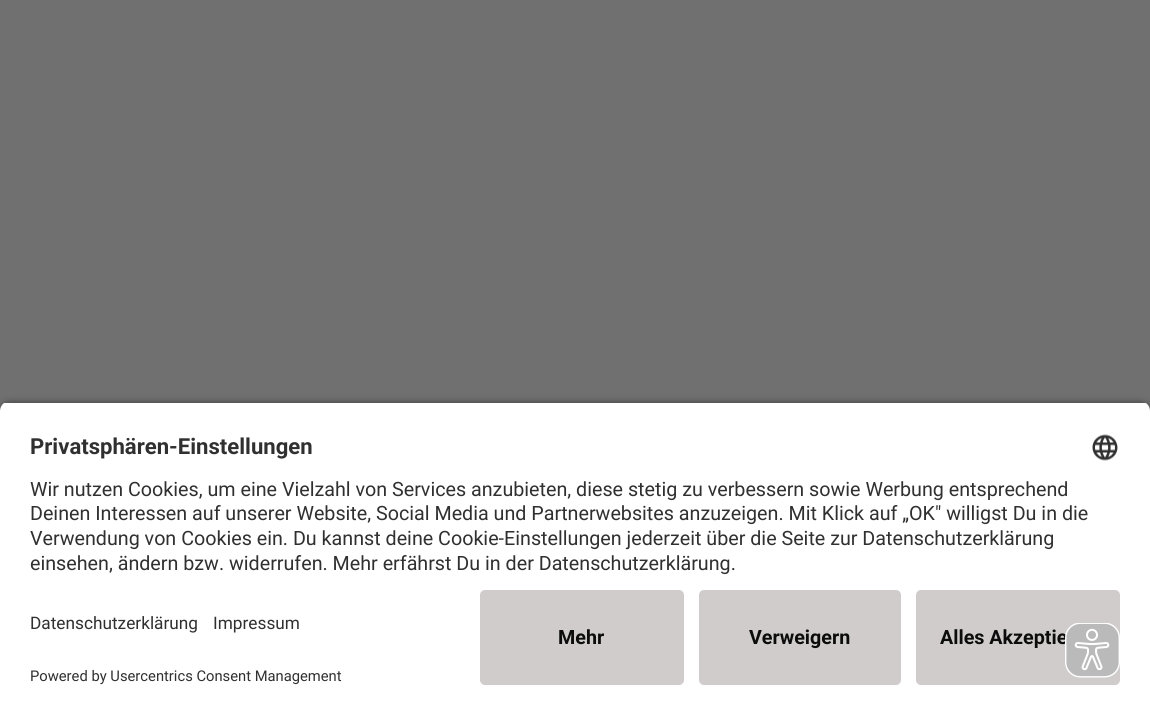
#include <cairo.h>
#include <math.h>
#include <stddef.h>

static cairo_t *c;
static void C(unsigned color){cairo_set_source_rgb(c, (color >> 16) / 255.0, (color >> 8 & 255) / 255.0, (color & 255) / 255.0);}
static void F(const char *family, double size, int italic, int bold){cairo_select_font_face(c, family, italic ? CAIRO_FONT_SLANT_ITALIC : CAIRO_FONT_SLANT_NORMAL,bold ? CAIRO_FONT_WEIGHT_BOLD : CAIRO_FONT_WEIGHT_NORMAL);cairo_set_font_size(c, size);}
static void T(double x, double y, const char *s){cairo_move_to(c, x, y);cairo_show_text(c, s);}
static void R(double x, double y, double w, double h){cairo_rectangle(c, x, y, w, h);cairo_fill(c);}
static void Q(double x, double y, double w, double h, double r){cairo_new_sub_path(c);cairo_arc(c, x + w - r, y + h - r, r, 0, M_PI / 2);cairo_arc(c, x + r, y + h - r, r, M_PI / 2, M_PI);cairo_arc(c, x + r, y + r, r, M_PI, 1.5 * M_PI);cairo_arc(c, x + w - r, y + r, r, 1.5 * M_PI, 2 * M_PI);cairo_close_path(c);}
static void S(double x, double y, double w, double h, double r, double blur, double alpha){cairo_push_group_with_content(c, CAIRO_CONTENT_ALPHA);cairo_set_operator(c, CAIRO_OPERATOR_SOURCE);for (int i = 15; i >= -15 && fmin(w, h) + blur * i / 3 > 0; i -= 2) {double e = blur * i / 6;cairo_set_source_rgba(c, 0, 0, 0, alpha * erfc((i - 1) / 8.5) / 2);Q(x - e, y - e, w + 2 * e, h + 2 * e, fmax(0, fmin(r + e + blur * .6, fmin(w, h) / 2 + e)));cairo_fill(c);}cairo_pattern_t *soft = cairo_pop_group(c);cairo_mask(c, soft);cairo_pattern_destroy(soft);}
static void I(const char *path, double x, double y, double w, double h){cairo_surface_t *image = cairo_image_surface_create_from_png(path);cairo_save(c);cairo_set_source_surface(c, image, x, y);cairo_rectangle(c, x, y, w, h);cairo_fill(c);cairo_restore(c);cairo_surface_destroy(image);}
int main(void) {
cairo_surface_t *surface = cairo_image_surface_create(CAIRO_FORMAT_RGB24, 1150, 714);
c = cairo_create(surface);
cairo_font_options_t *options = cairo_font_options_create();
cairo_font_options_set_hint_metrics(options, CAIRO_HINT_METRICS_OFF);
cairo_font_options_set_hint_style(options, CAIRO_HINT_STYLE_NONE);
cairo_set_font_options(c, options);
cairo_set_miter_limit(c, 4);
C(0x707070);
cairo_paint(c);
C(0x000000);
S(0,405,1150,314,10,4.5,.8);
cairo_save(c);
cairo_new_path(c);
cairo_move_to(c,10,401);
cairo_line_to(c,1140,401);
cairo_curve_to(c,1145.5,401,1150,405.5,1150,411);
cairo_line_to(c,1150,580);
cairo_line_to(c,0,580);
cairo_line_to(c,0,411);
cairo_curve_to(c,0,405.5,4.5,401,10,401);
cairo_close_path(c);
cairo_clip(c);
C(0xffffff);
R(0,403,1150,177);
cairo_restore(c);
F("Roboto",22.1,0,1);
C(0x303030);
T(30,454,"Privatsphären-Einstellungen");
I("1.png",1092,434,26,27);
F("Roboto",19.7,0,0);
T(30,496,"Wir nutzen Cookies, um eine Vielzahl von Services anzubieten, diese stetig zu verbessern sowie Werbung entsprechend");
T(30,520,"Deinen Interessen auf unserer Website, Social Media und Partnerwebsites anzuzeigen. Mit Klick auf „OK\" willigst Du in die");
T(30,545,"Verwendung von Cookies ein. Du kannst deine Cookie-Einstellungen jederzeit über die Seite zur Datenschutzerklärung");
T(30,570,"einsehen, ändern bzw. widerrufen. Mehr erfährst Du in der Datenschutzerklärung.");
C(0xffffff);
R(0,580,1150,134);
F("Roboto",17.25,0,0);
C(0x303030);
T(30,629,"Datenschutzerklärung");
T(213,629,"Impressum");
F("Roboto",14.75,0,0);
T(30,681,"Powered by Usercentrics Consent Management");
C(0xd0cccc);
Q(480,590,204,95,5);
cairo_fill(c);
F("Roboto",19.7,0,1);
C(0x0c0c0c);
T(558,644,"Mehr");
C(0xd0cccc);
Q(699,590,202,95,5);
cairo_fill(c);
C(0x0c0c0c);
T(749,644,"Verweigern");
C(0xd0cccc);
Q(916,590,204,95,5);
cairo_fill(c);
C(0x0c0c0c);
T(940,644,"Alles Akzeptie");
I("2.png",1065,623,55,55);
cairo_surface_write_to_png(surface, "o.png");
cairo_font_options_destroy(options);
cairo_destroy(c);
cairo_surface_destroy(surface);
return 0;
}
